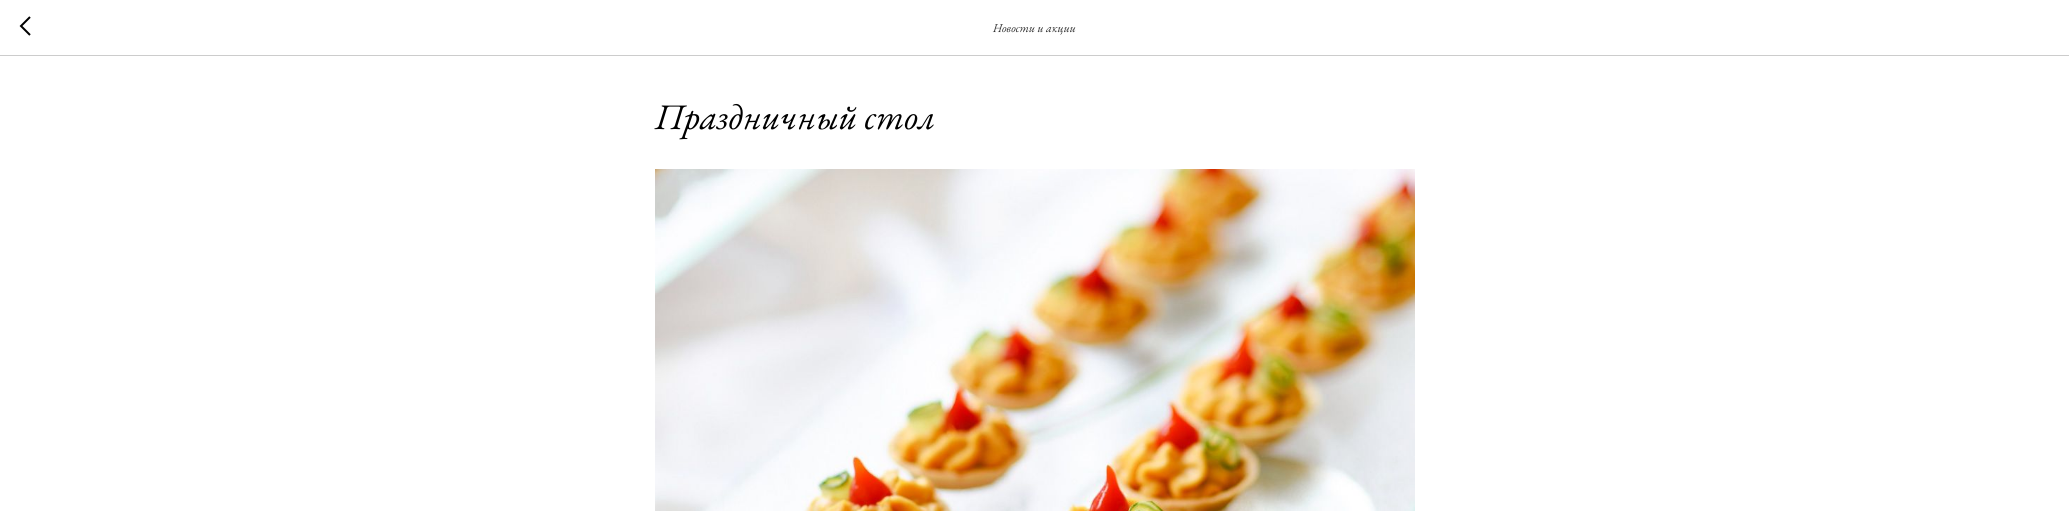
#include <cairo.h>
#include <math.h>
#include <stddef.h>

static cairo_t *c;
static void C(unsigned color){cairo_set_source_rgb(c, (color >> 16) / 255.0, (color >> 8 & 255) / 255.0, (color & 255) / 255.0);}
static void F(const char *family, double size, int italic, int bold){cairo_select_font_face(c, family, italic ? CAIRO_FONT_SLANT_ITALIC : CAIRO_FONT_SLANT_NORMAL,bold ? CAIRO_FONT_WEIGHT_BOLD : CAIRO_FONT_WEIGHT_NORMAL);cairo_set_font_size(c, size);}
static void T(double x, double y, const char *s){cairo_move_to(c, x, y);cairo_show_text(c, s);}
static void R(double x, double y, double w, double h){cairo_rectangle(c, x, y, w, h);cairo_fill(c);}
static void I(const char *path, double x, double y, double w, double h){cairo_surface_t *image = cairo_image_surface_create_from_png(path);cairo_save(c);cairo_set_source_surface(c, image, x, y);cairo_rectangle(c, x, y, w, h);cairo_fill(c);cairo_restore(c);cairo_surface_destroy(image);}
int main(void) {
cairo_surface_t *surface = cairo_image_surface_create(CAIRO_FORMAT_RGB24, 2069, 511);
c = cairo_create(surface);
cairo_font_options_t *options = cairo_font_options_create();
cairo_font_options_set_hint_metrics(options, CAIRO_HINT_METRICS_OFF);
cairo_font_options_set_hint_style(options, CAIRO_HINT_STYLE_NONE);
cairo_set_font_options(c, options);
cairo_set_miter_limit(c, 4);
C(0xffffff);
cairo_paint(c);
C(0xcccccc);
R(0,55,2069,1);
cairo_new_path(c);
cairo_move_to(c,30,35);
cairo_line_to(c,21,26);
cairo_line_to(c,30,17);
C(0x000000);
cairo_stroke(c);
F("EB Garamond",12,1,0);
C(0x333333);
T(993,32,"Новости и акции");
F("EB Garamond",36,1,0);
C(0x000000);
T(655,129,"Праздничный стол");
I("1.png",655,169,760,342);
cairo_surface_write_to_png(surface, "o.png");
cairo_font_options_destroy(options);
cairo_destroy(c);
cairo_surface_destroy(surface);
return 0;
}
